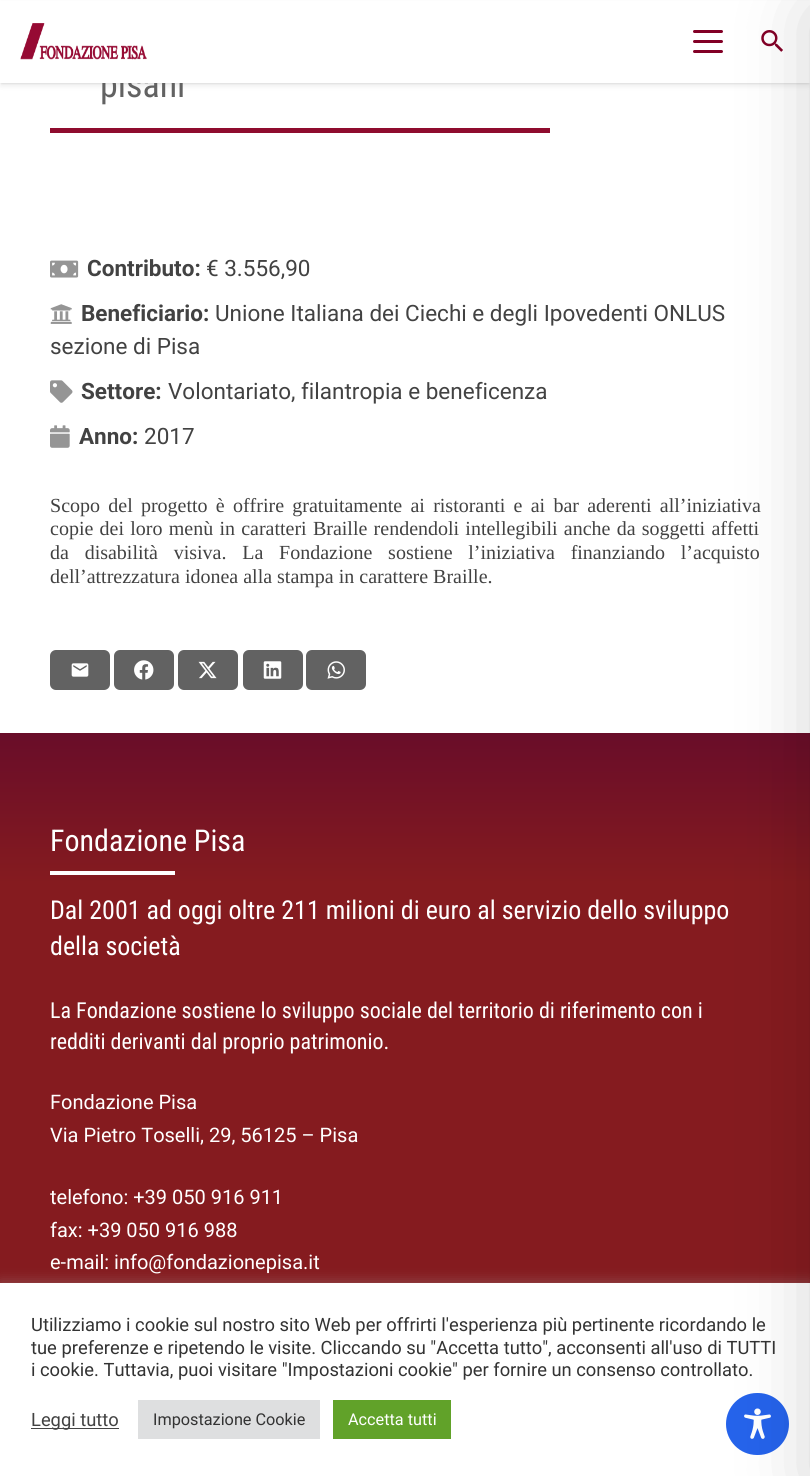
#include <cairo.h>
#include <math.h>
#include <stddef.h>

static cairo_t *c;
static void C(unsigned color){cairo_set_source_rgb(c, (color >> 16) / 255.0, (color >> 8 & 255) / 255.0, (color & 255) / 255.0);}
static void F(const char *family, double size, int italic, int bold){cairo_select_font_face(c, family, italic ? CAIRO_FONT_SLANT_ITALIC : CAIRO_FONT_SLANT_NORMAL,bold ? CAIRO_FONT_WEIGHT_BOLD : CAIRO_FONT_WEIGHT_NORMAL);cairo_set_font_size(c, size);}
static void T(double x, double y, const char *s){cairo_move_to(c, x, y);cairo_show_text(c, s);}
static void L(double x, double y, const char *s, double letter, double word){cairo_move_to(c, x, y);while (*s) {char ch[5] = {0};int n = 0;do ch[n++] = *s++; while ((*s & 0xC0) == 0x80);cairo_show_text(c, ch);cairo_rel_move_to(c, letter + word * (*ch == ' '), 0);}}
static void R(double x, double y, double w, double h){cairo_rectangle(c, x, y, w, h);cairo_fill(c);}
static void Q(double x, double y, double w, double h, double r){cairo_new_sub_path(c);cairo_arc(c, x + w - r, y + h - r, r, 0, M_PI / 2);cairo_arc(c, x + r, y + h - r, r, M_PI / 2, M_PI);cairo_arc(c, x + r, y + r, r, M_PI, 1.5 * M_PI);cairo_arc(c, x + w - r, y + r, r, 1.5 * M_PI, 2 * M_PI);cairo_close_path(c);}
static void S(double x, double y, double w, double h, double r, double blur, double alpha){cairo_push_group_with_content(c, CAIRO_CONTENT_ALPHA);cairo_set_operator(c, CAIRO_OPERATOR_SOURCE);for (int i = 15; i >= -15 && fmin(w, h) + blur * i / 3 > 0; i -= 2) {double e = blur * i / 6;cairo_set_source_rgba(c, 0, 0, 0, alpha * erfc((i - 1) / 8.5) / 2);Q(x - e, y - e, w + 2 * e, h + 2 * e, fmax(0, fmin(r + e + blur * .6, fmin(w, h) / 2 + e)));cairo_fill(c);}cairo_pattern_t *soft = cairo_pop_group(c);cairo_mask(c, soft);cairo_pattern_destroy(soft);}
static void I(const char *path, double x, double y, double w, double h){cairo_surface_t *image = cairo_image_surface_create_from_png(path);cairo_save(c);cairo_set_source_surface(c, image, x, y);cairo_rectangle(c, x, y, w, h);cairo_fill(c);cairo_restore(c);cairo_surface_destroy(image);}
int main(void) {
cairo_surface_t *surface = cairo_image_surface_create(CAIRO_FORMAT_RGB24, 810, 1476);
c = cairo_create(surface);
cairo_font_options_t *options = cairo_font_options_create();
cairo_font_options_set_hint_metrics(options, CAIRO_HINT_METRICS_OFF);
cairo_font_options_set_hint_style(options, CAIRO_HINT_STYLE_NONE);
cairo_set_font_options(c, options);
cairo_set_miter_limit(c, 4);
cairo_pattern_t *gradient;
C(0xffffff);
cairo_paint(c);
C(0x000000);
S(1,4,808,80,0,.5,.05);
S(1,5,808,80,0,3,.1);
F("Roboto Condensed",36,0,0);
C(0x626262);
T(100,97,"pisani");
C(0xffffff);
R(0,1,810,82);
C(0x820026);
Q(693,40,30,3,1.5);
cairo_fill(c);
Q(693,30,30,3,1.5);
cairo_fill(c);
Q(693,50,30,3,1.5);
cairo_fill(c);
I("2.png",761,30,22,22);
gradient = cairo_pattern_create_linear(405,733,405,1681);
cairo_pattern_add_color_stop_rgba(gradient,0,0.816,0.816,0.816,1);
cairo_pattern_add_color_stop_rgba(gradient,0,0.412,0.051,0.161,1);
cairo_pattern_add_color_stop_rgba(gradient,.16,0.522,0.106,0.122,1);
cairo_pattern_add_color_stop_rgba(gradient,1,0.522,0.106,0.122,1);
cairo_set_source(c,gradient);
cairo_pattern_destroy(gradient);
R(0,733,810,550);
C(0xacabab);
S(0,1281,810,194,0,6,.3);
C(0xffffff);
R(0,1283,810,193);
C(0x2563eb);
Q(726,1393,63,62,31);
cairo_fill(c);
I("12.png",744,1408,27,31);
C(0x000000);
S(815,13,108,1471,0,37.5,.2);
I("1.png",20,23,127,37);
C(0x8f0c2e);
R(50,128,500,5);
I("3.png",50,260,29,18);
F("Roboto",22.5,0,1);
C(0x424242);
T(87,276,"Contributo:");
F("Roboto",22.5,0,0);
T(206,276,"€ 3.556,90");
I("4.png",50,304,22,20);
F("Roboto",22.5,0,1);
T(81,321,"Beneficiario:");
F("Roboto",22.5,0,0);
T(215,321,"Unione Italiana dei Ciechi e degli Ipovedenti ONLUS");
T(50,354,"sezione di Pisa");
I("5.png",50,380,23,23);
F("Roboto",22.5,0,1);
T(81,399,"Settore:");
F("Roboto",22.5,0,0);
T(168,399,"Volontariato, filantropia e beneficenza");
I("6.png",50,425,20,23);
F("Roboto",22.5,0,1);
T(79,444,"Anno:");
F("Roboto",22.5,0,0);
T(144,444,"2017");
F("Liberation Serif",20,0,0);
L(50,512,"Scopo del progetto è offrire gratuitamente ai ristoranti e ai bar aderenti all’iniziativa",0,3.25);
L(50,535,"copie dei loro menù in caratteri Braille rendendoli intellegibili anche da soggetti affetti",0,1.25);
L(50,559,"da disabilità visiva. La Fondazione sostiene l’iniziativa finanziando l’acquisto",0,10.75);
T(50,583,"dell’attrezzatura idonea alla stampa in carattere Braille.");
C(0x626262);
Q(50,650,60,40,6);
cairo_fill(c);
I("7.png",71,663,18,14);
Q(114,650,60,40,6);
cairo_fill(c);
I("8.png",134,660,20,20);
Q(178,650,60,40,6);
cairo_fill(c);
I("9.png",198,661,19,18);
Q(243,650,60,40,6);
cairo_fill(c);
I("10.png",263,661,19,18);
Q(306,650,60,40,6);
cairo_fill(c);
I("11.png",327,661,18,18);
F("Roboto Condensed",30,0,0);
C(0xffffff);
T(50,851,"Fondazione Pisa");
R(50,871,125,4);
F("Roboto Condensed",26,0,0);
T(50,919,"Dal 2001 ad oggi oltre 211 milioni di euro al servizio dello sviluppo");
T(50,955,"della società");
F("Roboto Condensed",22,0,0);
T(50,1018,"La Fondazione sostiene lo sviluppo sociale del territorio di riferimento con i");
T(50,1049,"redditi derivanti dal proprio patrimonio.");
F("Roboto",20,0,0);
T(50,1109,"Fondazione Pisa");
T(50,1142,"Via Pietro Toselli, 29, 56125 – Pisa");
T(50,1204,"telefono: +39 050 916 911");
T(50,1237,"fax: +39 050 916 988");
T(50,1269,"e-mail: info@fondazionepisa.it");
F("Roboto",18.35,0,0);
C(0x333333);
T(31,1331,"Utilizziamo i cookie sul nostro sito Web per offrirti l'esperienza più pertinente ricordando le");
T(31,1354,"tue preferenze e ripetendo le visite. Cliccando su \"Accetta tutto\", acconsenti all'uso di TUTTI");
T(31,1376,"i cookie. Tuttavia, puoi visitare \"Impostazioni cookie\" per fornire un consenso controllato.");
C(0x444444);
R(31,1428,88,1);
C(0x424242);
T(31,1426,"Leggi tutto");
C(0xdedfe0);
R(138,1400,182,39);
F("Roboto",16.25,0,0);
C(0x333333);
T(153,1425,"Impostazione Cookie");
C(0x61a229);
R(333,1400,118,39);
C(0xffffff);
T(348,1425,"Accetta tutti");
cairo_surface_write_to_png(surface, "o.png");
cairo_font_options_destroy(options);
cairo_destroy(c);
cairo_surface_destroy(surface);
return 0;
}
